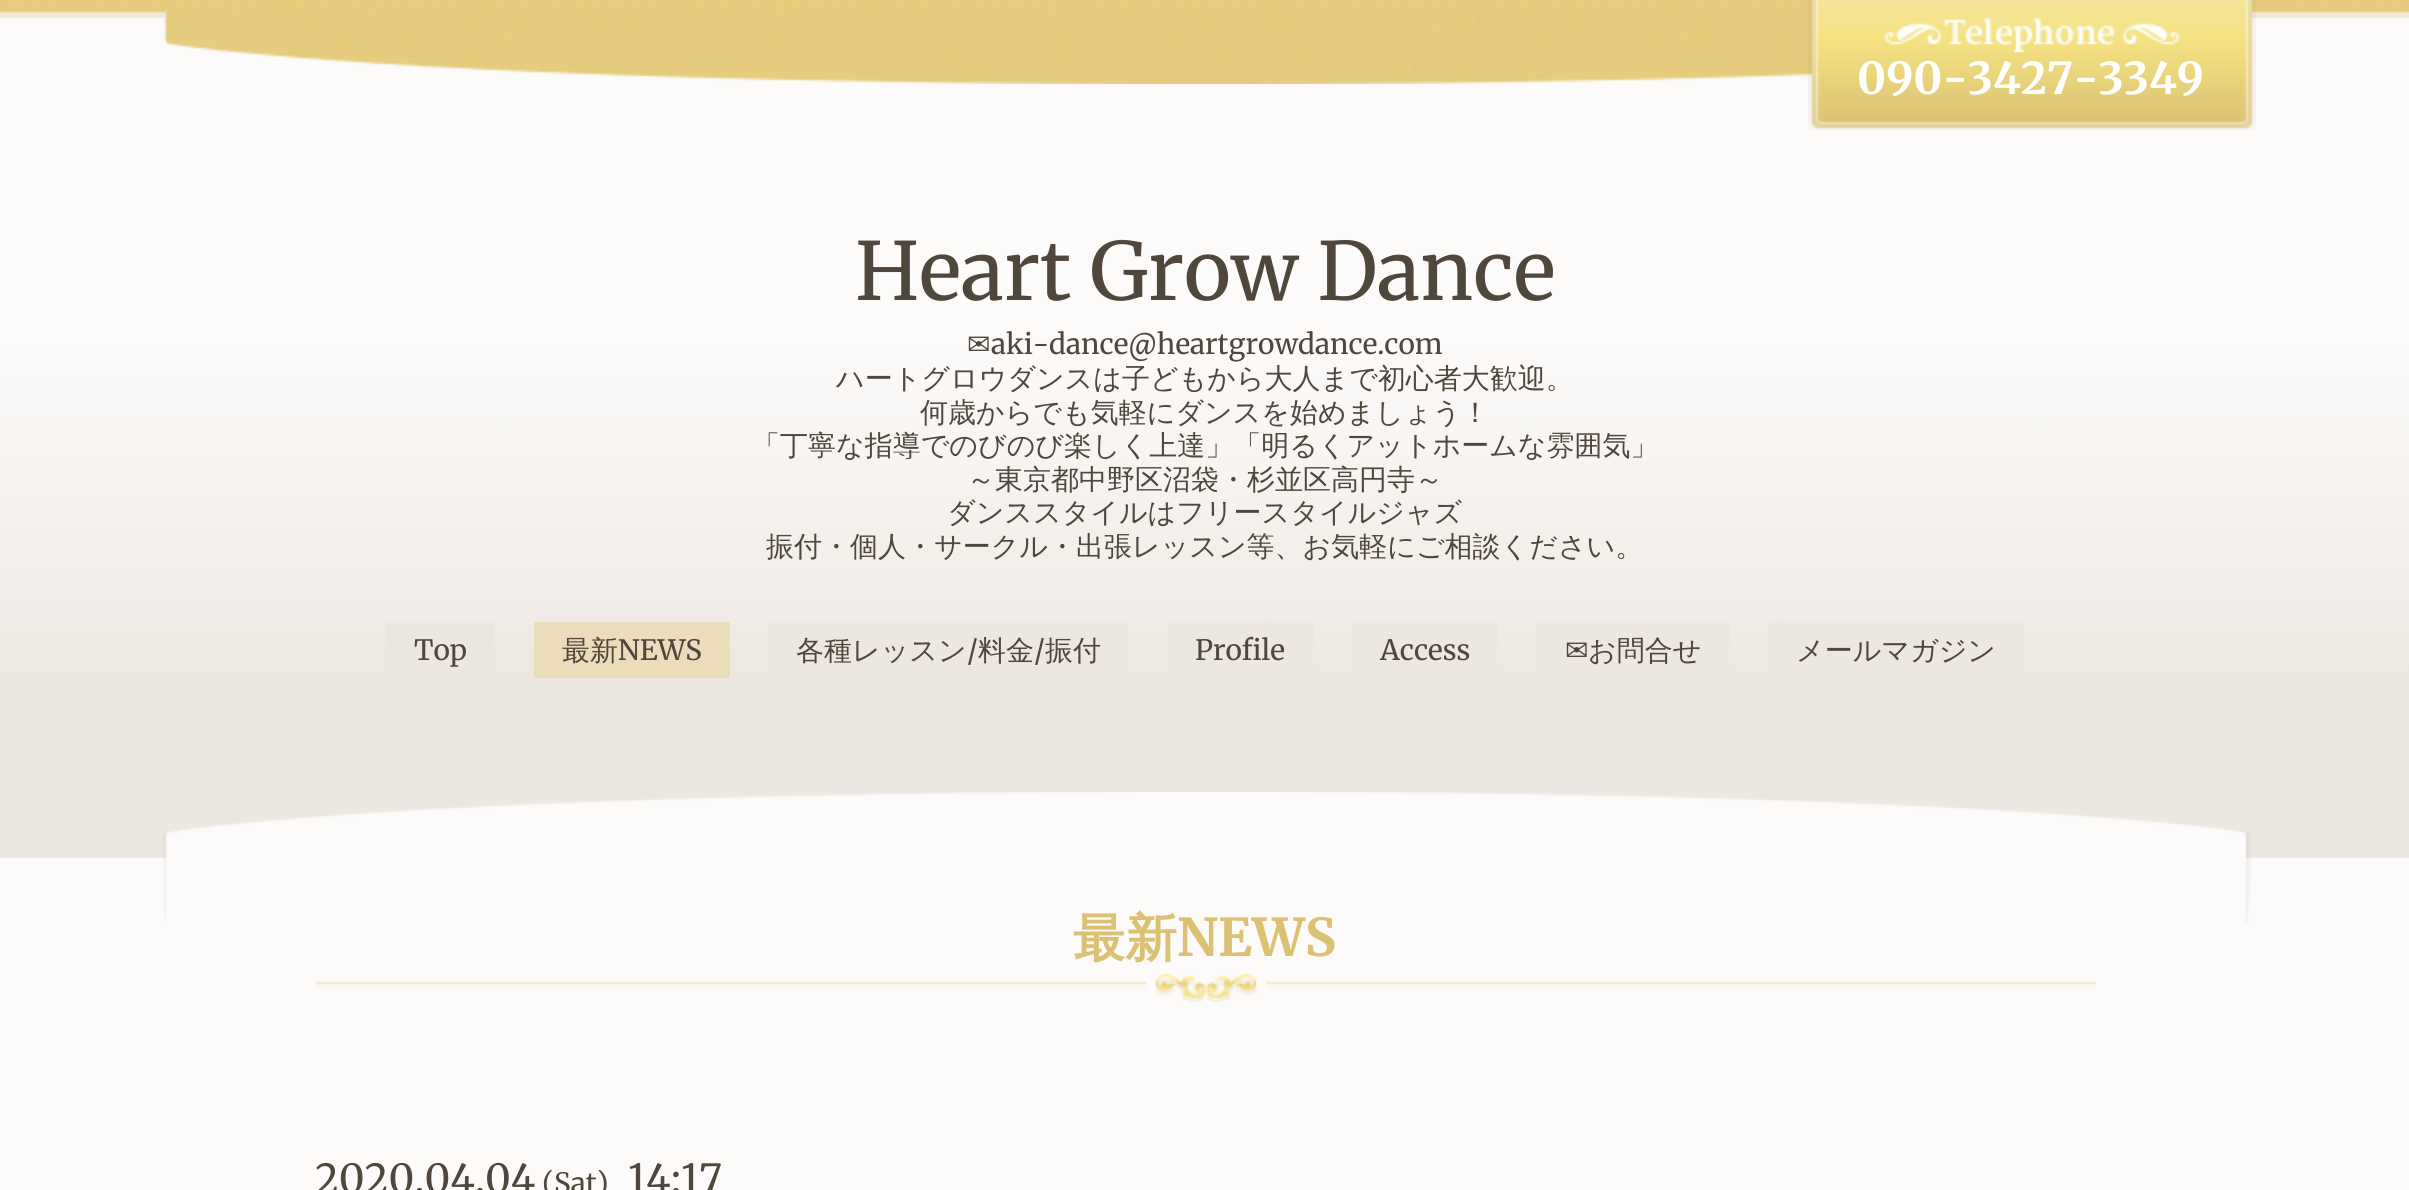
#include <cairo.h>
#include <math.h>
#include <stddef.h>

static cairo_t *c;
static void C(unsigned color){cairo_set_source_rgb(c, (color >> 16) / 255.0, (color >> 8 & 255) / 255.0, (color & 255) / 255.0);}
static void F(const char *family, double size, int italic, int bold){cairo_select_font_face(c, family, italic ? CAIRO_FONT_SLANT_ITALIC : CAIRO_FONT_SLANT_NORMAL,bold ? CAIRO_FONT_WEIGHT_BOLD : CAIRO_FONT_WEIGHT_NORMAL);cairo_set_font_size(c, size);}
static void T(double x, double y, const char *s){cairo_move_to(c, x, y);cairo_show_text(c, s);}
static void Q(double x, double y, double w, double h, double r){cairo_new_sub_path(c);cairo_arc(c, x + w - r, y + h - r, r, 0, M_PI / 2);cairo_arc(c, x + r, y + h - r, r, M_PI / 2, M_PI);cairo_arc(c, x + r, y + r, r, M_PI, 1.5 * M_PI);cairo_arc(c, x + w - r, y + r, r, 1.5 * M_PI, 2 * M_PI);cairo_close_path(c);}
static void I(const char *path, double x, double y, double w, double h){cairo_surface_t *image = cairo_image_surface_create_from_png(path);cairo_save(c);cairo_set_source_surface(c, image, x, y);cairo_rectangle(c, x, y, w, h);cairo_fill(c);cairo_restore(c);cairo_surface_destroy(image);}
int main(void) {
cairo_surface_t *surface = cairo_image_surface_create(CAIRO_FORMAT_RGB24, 2409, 1190);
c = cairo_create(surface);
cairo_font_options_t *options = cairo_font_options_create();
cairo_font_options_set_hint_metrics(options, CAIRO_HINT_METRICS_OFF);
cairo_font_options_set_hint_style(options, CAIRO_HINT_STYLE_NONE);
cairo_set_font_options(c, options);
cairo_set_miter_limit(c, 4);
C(0xfcfbfa);
cairo_paint(c);
I("1.png",0,0,2409,858);
I("2.png",163,11,1650,73);
I("3.png",1808,0,448,130);
F("Merriweather",44,0,1);
C(0xffffff);
T(1857,94,"090-3427-3349");
F("Merriweather",80,0,0);
C(0x4f463c);
T(855,300,"Heart Grow Dance");
F("DejaVu Sans",28,0,0);
T(967,354,"✉");
F("Merriweather",28,0,0);
T(991,354,"aki-dance@heartgrowdance.com");
F("WenQuanYi Zen Hei Medium",28,0,0);
T(836,388,"ハートグロウダンスは子どもから大人まで初心者大歓迎。");
T(920,422,"何歳からでも気軽にダンスを始めましょう！");
T(752,455,"「丁寧な指導でのびのび楽しく上達」「明るくアットホームな雰囲気」");
T(967,489,"～東京都中野区沼袋・杉並区高円寺～");
T(947,522,"ダンススタイルはフリースタイルジャズ");
T(766,556,"振付・個人・サークル・出張レッスン等、お気軽にご相談ください。");
C(0xede7e1);
Q(386,622,108,56,2);
cairo_fill(c);
F("Merriweather",28,0,0);
C(0x4f463c);
T(414,660,"Top");
C(0xebddb9);
Q(534,622,196,56,2);
cairo_fill(c);
F("WenQuanYi Zen Hei Medium",28,0,0);
C(0x4f463c);
T(562,660,"最新");
F("Merriweather",28,0,0);
T(618,660,"NEWS");
C(0xede7e1);
Q(768,622,360,56,2);
cairo_fill(c);
F("WenQuanYi Zen Hei Medium",28,0,0);
C(0x4f463c);
T(796,660,"各種レッスン");
F("Merriweather",28,0,0);
T(967,660,"/");
F("WenQuanYi Zen Hei Medium",28,0,0);
T(978,660,"料金");
F("Merriweather",28,0,0);
T(1034,660,"/");
F("WenQuanYi Zen Hei Medium",28,0,0);
T(1045,660,"振付");
C(0xede7e1);
Q(1168,622,146,56,2);
cairo_fill(c);
F("Merriweather",28,0,0);
C(0x4f463c);
T(1195,660,"Profile");
C(0xede7e1);
Q(1352,622,146,56,2);
cairo_fill(c);
C(0x4f463c);
T(1380,660,"Access");
C(0xede7e1);
Q(1536,622,194,56,2);
cairo_fill(c);
F("DejaVu Sans",28,0,0);
C(0x4f463c);
T(1565,660,"✉");
F("WenQuanYi Zen Hei Medium",28,0,0);
T(1588,660,"お問合せ");
C(0xede7e1);
Q(1768,622,256,56,2);
cairo_fill(c);
C(0x4f463c);
T(1796,660,"メールマガジン");
I("4.png",163,792,2088,132);
I("5.png",316,974,1780,28);
F("WenQuanYi Zen Hei",52,0,1);
C(0xdac173);
T(1073,956,"最新");
F("Merriweather",52,0,1);
T(1177,956,"NEWS");
F("Merriweather",40,0,0);
C(0x4f463c);
T(315,1193,"2020.04.04");
F("Merriweather",28,0,0);
T(542,1193,"(Sat)");
F("Merriweather",40,0,0);
T(628,1193,"14:17");
cairo_surface_write_to_png(surface, "o.png");
cairo_font_options_destroy(options);
cairo_destroy(c);
cairo_surface_destroy(surface);
return 0;
}
